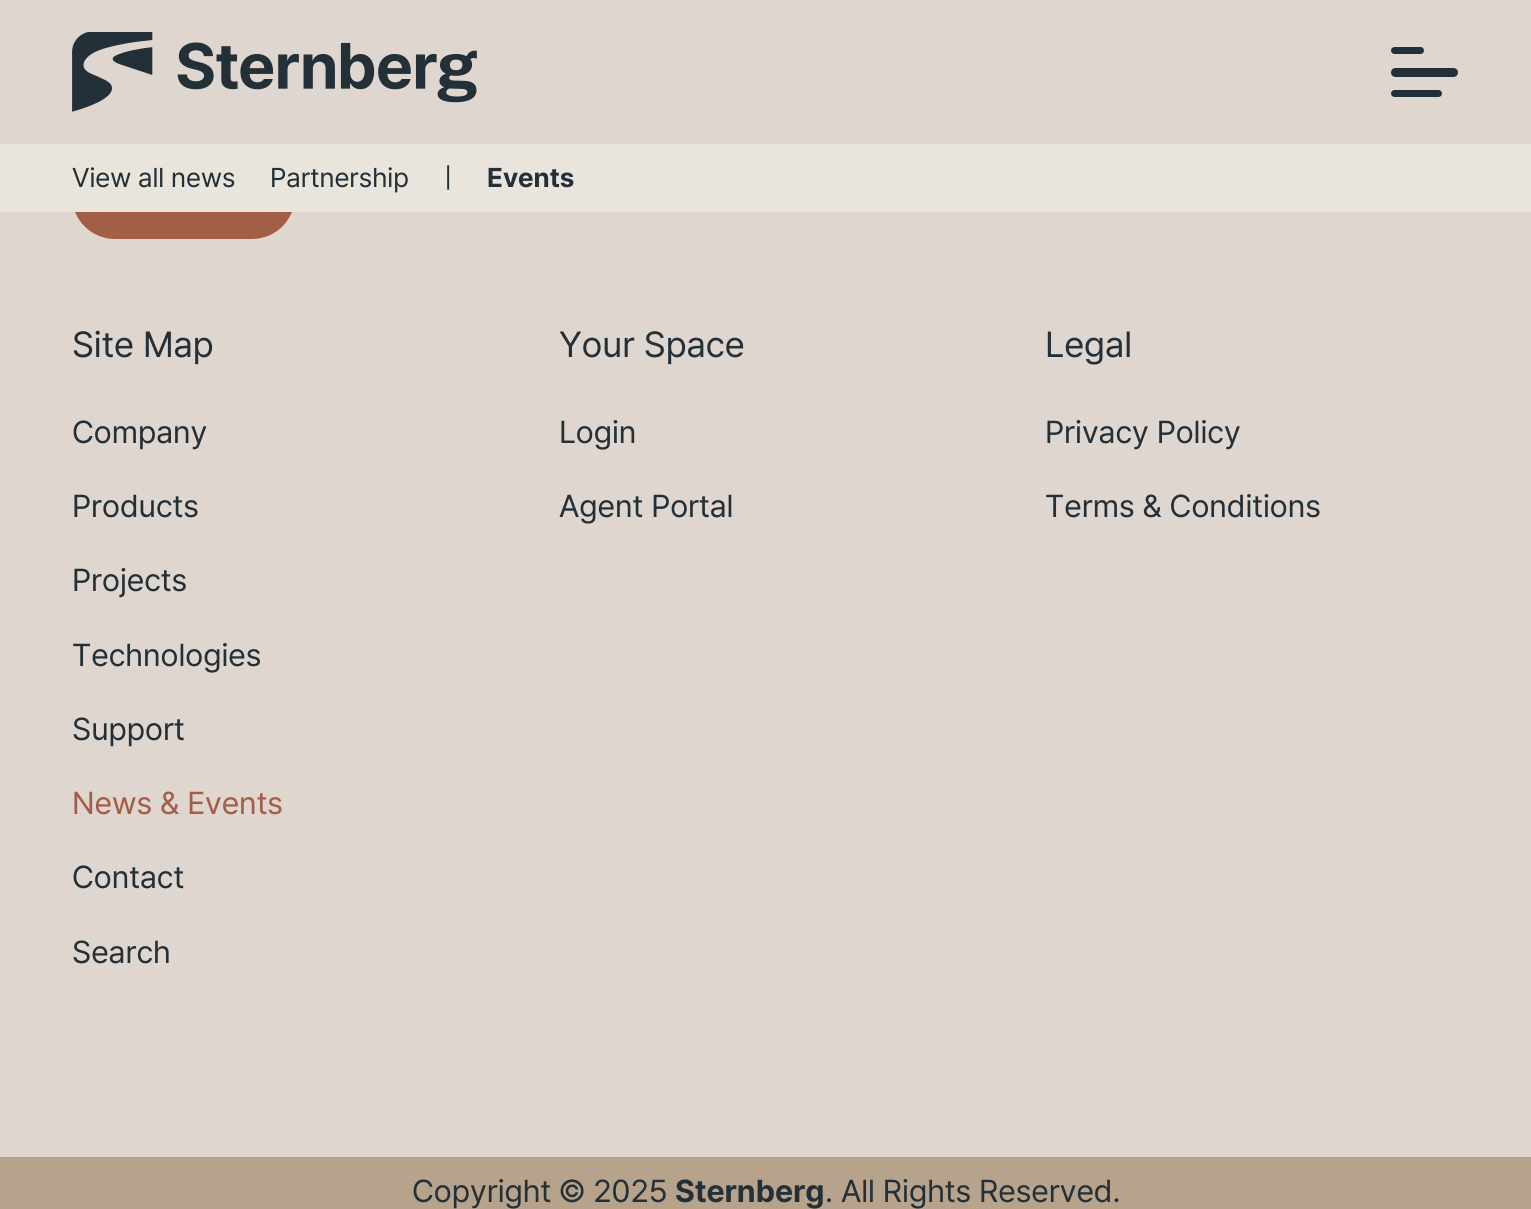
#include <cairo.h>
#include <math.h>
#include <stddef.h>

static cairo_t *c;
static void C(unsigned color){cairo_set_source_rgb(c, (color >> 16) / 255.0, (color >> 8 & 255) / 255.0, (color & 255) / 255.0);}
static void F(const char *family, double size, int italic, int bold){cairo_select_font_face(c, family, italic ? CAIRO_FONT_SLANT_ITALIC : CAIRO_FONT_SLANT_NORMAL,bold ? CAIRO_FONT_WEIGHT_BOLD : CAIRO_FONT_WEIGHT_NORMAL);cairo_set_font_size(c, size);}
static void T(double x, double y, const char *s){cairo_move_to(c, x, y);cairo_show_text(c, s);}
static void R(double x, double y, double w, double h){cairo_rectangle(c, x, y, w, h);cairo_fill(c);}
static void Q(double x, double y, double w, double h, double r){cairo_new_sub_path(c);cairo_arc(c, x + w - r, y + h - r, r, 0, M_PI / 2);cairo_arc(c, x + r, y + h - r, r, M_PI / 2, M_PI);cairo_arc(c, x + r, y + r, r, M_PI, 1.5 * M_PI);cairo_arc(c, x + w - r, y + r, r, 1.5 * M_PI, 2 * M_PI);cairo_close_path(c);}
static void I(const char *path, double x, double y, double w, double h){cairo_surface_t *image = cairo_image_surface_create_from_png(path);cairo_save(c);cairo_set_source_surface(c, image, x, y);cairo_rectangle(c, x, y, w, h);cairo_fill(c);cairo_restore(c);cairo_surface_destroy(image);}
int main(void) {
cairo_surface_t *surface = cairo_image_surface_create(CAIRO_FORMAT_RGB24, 1531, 1209);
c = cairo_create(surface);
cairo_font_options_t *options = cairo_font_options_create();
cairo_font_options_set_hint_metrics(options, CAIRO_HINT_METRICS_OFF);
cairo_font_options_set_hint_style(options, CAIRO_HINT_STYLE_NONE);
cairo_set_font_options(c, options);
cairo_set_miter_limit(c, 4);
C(0xdfd6cf);
cairo_paint(c);
I("1.png",72,32,405,80);
C(0x243038);
Q(1391,47,33,7,3.5);
cairo_fill(c);
Q(1391,68,67,9,4.5);
cairo_fill(c);
Q(1391,90,51,7,3.5);
cairo_fill(c);
C(0xa25e46);
Q(72,153,223,86,43);
cairo_fill(c);
C(0xe9e5dc);
R(0,144,1531,68);
F("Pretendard",27,0,0);
C(0x243038);
T(72,187,"View all news");
T(270,187,"Partnership");
T(444,187,"|");
F("Pretendard",27,0,1);
T(487,187,"Events");
F("Pretendard",36,0,0);
T(72,357,"Site Map");
F("Pretendard",31.5,0,0);
T(72,443,"Company");
T(72,517,"Products");
T(72,591,"Projects");
T(72,666,"Technologies");
T(72,740,"Support");
C(0xa25e46);
T(72,814,"News & Events");
C(0x243038);
T(72,888,"Contact");
T(72,963,"Search");
F("Pretendard",36,0,0);
T(559,357,"Your Space");
F("Pretendard",31.5,0,0);
T(559,443,"Login");
T(559,517,"Agent Portal");
F("Pretendard",36,0,0);
T(1045,357,"Legal");
F("Pretendard",31.5,0,0);
T(1045,443,"Privacy Policy");
T(1045,517,"Terms & Conditions");
C(0xb7a38c);
R(0,1157,1531,52);
C(0x243038);
T(412,1202,"Copyright © 2025");
F("Pretendard",31.5,0,1);
T(675,1202,"Sternberg");
F("Pretendard",31.5,0,0);
T(825,1202,". All Rights Reserved.");
cairo_surface_write_to_png(surface, "o.png");
cairo_font_options_destroy(options);
cairo_destroy(c);
cairo_surface_destroy(surface);
return 0;
}
